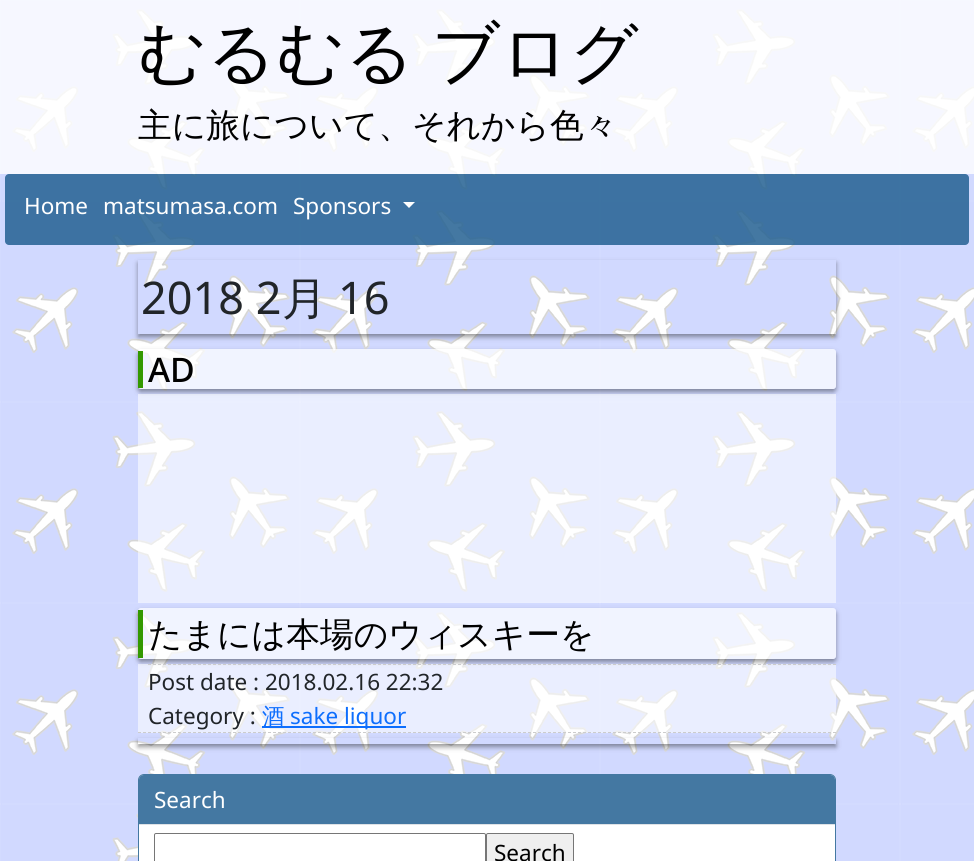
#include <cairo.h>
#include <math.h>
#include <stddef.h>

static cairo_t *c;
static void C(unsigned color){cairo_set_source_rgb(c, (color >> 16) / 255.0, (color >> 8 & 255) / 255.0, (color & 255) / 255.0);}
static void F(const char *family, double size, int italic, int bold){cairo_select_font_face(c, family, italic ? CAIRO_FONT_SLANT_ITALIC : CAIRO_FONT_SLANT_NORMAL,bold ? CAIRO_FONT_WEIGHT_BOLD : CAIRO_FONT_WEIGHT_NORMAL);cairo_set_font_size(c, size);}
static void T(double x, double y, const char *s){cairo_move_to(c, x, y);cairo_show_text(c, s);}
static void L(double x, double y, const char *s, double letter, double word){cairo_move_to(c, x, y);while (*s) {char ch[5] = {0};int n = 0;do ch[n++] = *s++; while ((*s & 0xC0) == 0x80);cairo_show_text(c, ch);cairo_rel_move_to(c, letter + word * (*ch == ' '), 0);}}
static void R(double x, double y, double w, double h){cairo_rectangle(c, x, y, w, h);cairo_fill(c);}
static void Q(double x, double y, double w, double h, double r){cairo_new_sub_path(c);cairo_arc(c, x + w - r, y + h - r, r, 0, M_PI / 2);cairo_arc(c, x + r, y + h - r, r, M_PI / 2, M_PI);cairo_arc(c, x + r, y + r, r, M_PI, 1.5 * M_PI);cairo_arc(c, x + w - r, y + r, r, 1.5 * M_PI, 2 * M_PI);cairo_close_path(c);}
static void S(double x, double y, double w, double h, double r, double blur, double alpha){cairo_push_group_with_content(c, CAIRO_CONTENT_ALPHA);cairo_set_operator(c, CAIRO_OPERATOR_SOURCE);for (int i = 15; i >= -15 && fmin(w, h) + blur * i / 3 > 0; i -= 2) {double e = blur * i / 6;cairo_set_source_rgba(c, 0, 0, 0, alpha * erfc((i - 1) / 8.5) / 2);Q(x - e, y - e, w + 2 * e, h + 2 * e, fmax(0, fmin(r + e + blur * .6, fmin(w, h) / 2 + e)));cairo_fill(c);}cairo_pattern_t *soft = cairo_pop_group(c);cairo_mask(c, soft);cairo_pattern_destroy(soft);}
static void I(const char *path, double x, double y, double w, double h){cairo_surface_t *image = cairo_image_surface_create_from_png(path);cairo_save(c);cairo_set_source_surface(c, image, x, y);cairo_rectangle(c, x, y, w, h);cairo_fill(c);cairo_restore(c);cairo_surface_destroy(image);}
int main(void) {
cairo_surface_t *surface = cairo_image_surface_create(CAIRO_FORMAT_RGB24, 974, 861);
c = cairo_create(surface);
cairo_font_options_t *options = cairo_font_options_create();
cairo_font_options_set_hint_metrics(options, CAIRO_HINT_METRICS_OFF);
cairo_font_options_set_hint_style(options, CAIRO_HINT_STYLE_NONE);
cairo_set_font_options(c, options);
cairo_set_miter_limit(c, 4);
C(0xffffff);
cairo_paint(c);
I("1.png",0,0,974,861);
cairo_set_source_rgba(c,1,1,1,0.8);
R(0,0,974,174);
F("WenQuanYi Zen Hei Medium",67.5,0,0);
C(0x000000);
L(138,76,"むるむる ブログ",0,-3);
F("WenQuanYi Zen Hei Medium",33.75,0,0);
T(138,137,"主に旅について、それから色々");
cairo_set_source_rgba(c,0.141,0.38,0.573,0.85);
Q(5,174,964,71,4);
cairo_fill(c);
F("Noto Sans",22.5,0,0);
C(0xffffff);
T(24,214,"Home");
T(103,214,"matsumasa.com");
T(293,214,"Sponsors");
cairo_new_path(c);
cairo_move_to(c,403,202);
cairo_line_to(c,415,202);
cairo_line_to(c,409,208);
cairo_close_path(c);
cairo_fill(c);
cairo_save(c);
cairo_set_fill_rule(c,CAIRO_FILL_RULE_EVEN_ODD);
cairo_new_path(c);
cairo_move_to(c,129,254);
cairo_line_to(c,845,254);
cairo_line_to(c,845,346);
cairo_line_to(c,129,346);
cairo_close_path(c);
cairo_move_to(c,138,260);
cairo_line_to(c,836,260);
cairo_line_to(c,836,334);
cairo_line_to(c,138,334);
cairo_close_path(c);
cairo_clip(c);
C(0x000000);
S(138,263,698,74,0,2.5,.4);
cairo_restore(c);
F("Noto Sans",45,0,0);
C(0x212529);
T(141,314,"2018 2");
F("WenQuanYi Zen Hei Medium",45,0,0);
T(282,314,"月");
F("Noto Sans",45,0,0);
T(338,314,"16");
cairo_save(c);
cairo_set_fill_rule(c,CAIRO_FILL_RULE_EVEN_ODD);
cairo_new_path(c);
cairo_move_to(c,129,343);
cairo_line_to(c,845,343);
cairo_line_to(c,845,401);
cairo_line_to(c,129,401);
cairo_close_path(c);
cairo_move_to(c,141,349);
cairo_line_to(c,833,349);
cairo_curve_to(c,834.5,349,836,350.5,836,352);
cairo_line_to(c,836,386);
cairo_curve_to(c,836,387.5,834.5,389,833,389);
cairo_line_to(c,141,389);
cairo_curve_to(c,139.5,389,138,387.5,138,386);
cairo_line_to(c,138,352);
cairo_curve_to(c,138,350.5,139.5,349,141,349);
cairo_close_path(c);
cairo_clip(c);
C(0x000000);
S(138,352,698,40,3,2.5,.4);
cairo_restore(c);
cairo_set_source_rgba(c,1,1,1,0.7);
Q(138,349,698,40,3);
cairo_fill(c);
C(0x339900);
R(138,351,5,37);
F("Noto Sans Medium",33.75,0,0);
C(0x000000);
T(148,382,"AD");
cairo_set_source_rgba(c,1,1,1,0.55);
R(138,394,698,209);
cairo_save(c);
cairo_set_fill_rule(c,CAIRO_FILL_RULE_EVEN_ODD);
cairo_new_path(c);
cairo_move_to(c,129,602);
cairo_line_to(c,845,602);
cairo_line_to(c,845,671);
cairo_line_to(c,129,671);
cairo_close_path(c);
cairo_move_to(c,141,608);
cairo_line_to(c,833,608);
cairo_curve_to(c,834.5,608,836,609.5,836,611);
cairo_line_to(c,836,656);
cairo_curve_to(c,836,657.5,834.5,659,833,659);
cairo_line_to(c,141,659);
cairo_curve_to(c,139.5,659,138,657.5,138,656);
cairo_line_to(c,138,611);
cairo_curve_to(c,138,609.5,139.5,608,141,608);
cairo_close_path(c);
cairo_clip(c);
C(0x000000);
S(138,611,698,51,3,2.5,.4);
cairo_restore(c);
cairo_set_source_rgba(c,1,1,1,0.7);
Q(138,608,698,51,3);
cairo_fill(c);
C(0x339900);
R(138,610,5,48);
F("WenQuanYi Zen Hei Medium",33.75,0,0);
C(0x000000);
T(148,646,"たまには本場のウィスキーを");
cairo_set_source_rgba(c,1,1,1,0.55);
R(138,664,698,69);
cairo_new_path(c);
cairo_move_to(c,138,732.5);
cairo_line_to(c,836,732.5);
C(0xcccccc);
cairo_set_line_width(c,1);
cairo_set_dash(c,(double[]){3,2},2,0);
cairo_stroke(c);
cairo_new_path(c);
cairo_move_to(c,148,664.5);
cairo_line_to(c,836,664.5);
cairo_stroke(c);
F("Noto Sans",22.5,0,0);
C(0x212529);
T(148,690,"Post date : 2018.02.16 22:32");
T(148,724,"Category :");
C(0x0d6efd);
R(262,726,144,2);
F("WenQuanYi Zen Hei Medium",22.5,0,0);
T(262,724,"酒");
F("Noto Sans",22.5,0,0);
T(290,724,"sake liquor");
cairo_save(c);
cairo_set_fill_rule(c,CAIRO_FILL_RULE_EVEN_ODD);
cairo_new_path(c);
cairo_move_to(c,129,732);
cairo_line_to(c,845,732);
cairo_line_to(c,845,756);
cairo_line_to(c,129,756);
cairo_close_path(c);
cairo_move_to(c,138,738);
cairo_line_to(c,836,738);
cairo_line_to(c,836,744);
cairo_line_to(c,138,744);
cairo_close_path(c);
cairo_clip(c);
C(0x000000);
S(138,741,698,6,0,2.5,.4);
cairo_restore(c);
C(0xffffff);
Q(138,774,698,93,6);
cairo_fill(c);
Q(138.5,774.5,697,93,5.5);
cairo_set_source_rgba(c,0.141,0.38,0.573,0.85);
cairo_set_dash(c,NULL,0,0);
cairo_stroke(c);
cairo_new_path(c);
cairo_move_to(c,144,775);
cairo_line_to(c,830,775);
cairo_curve_to(c,833,775,835,777,835,780);
cairo_line_to(c,835,824);
cairo_line_to(c,139,824);
cairo_line_to(c,139,780);
cairo_curve_to(c,139,777,141,775,144,775);
cairo_close_path(c);
cairo_fill(c);
C(0xdee2e6);
R(139,824,696,1);
C(0xffffff);
T(154,808,"Search");
Q(154.5,833.5,331,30,1.5);
C(0x767676);
cairo_stroke(c);
C(0xefefef);
Q(486.5,833.5,87,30,1.5);
cairo_fill_preserve(c);
C(0x767676);
cairo_stroke(c);
C(0x000000);
T(494,861,"Search");
cairo_surface_write_to_png(surface, "o.png");
cairo_font_options_destroy(options);
cairo_destroy(c);
cairo_surface_destroy(surface);
return 0;
}
